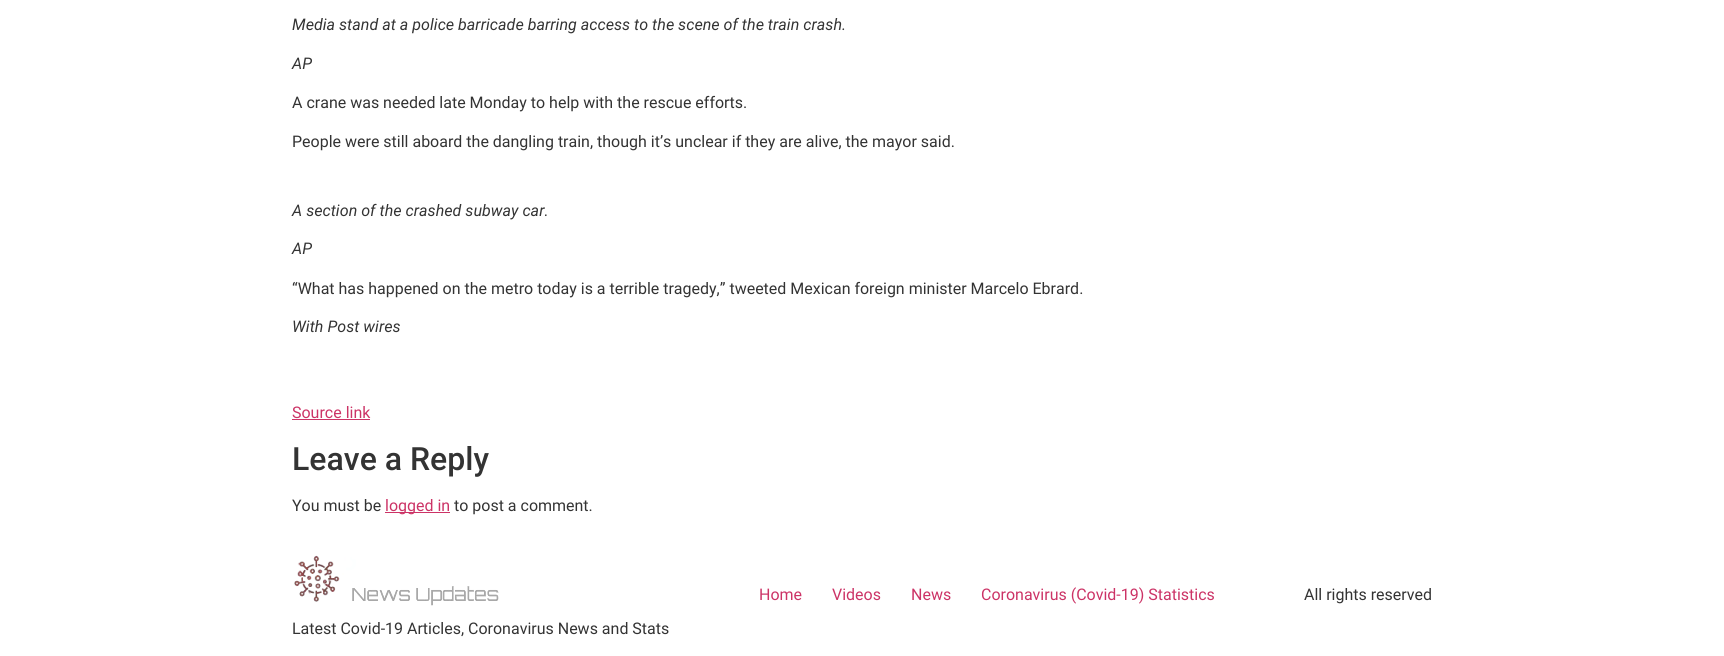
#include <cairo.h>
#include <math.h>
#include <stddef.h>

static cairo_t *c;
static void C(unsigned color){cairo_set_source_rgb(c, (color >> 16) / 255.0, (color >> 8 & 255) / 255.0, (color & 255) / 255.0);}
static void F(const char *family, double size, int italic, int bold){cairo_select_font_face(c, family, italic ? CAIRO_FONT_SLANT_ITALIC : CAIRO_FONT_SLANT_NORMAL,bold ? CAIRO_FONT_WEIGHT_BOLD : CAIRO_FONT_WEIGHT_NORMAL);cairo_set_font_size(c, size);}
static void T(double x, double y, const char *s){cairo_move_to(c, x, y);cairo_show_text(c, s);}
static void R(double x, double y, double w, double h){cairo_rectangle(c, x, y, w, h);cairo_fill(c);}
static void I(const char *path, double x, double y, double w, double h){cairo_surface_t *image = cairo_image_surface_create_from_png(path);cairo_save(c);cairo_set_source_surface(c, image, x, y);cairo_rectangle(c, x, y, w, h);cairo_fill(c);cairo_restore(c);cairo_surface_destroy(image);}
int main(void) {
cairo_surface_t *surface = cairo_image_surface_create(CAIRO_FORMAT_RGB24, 1724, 656);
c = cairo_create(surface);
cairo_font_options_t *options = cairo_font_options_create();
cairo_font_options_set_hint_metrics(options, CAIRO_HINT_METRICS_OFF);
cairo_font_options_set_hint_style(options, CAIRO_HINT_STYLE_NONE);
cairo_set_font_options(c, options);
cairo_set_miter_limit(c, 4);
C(0xffffff);
cairo_paint(c);
F("Roboto",16,1,0);
C(0x333333);
T(292,30,"Media stand at a police barricade barring access to the scene of the train crash.");
T(292,69,"AP");
F("Roboto",16,0,0);
T(292,108,"A crane was needed late Monday to help with the rescue efforts.");
T(292,147,"People were still aboard the dangling train, though it’s unclear if they are alive, the mayor said.");
F("Roboto",16,1,0);
T(292,216,"A section of the crashed subway car.");
T(292,254,"AP");
F("Roboto",16,0,0);
T(292,294,"“What has happened on the metro today is a terrible tragedy,” tweeted Mexican foreign minister Marcelo Ebrard.");
F("Roboto",16,1,0);
T(292,332,"With Post wires");
F("Roboto",16,0,0);
C(0xcc3366);
T(292,418,"Source link");
R(292,419,78,1);
F("Roboto Medium",32,0,0);
C(0x333333);
T(292,470,"Leave a Reply");
F("Roboto",16,0,0);
T(292,511,"You must be");
C(0xcc3366);
R(385,512,65,1);
T(385,511,"logged in");
C(0x333333);
T(454,511,"to post a comment.");
C(0xcc3366);
T(759,600,"Home");
T(832,600,"Videos");
T(911,600,"News");
T(981,600,"Coronavirus (Covid-19) Statistics");
C(0x333333);
T(1304,600,"All rights reserved");
I("1.png",294,555,205,51);
T(292,634,"Latest Covid-19 Articles, Coronavirus News and Stats");
cairo_surface_write_to_png(surface, "o.png");
cairo_font_options_destroy(options);
cairo_destroy(c);
cairo_surface_destroy(surface);
return 0;
}
